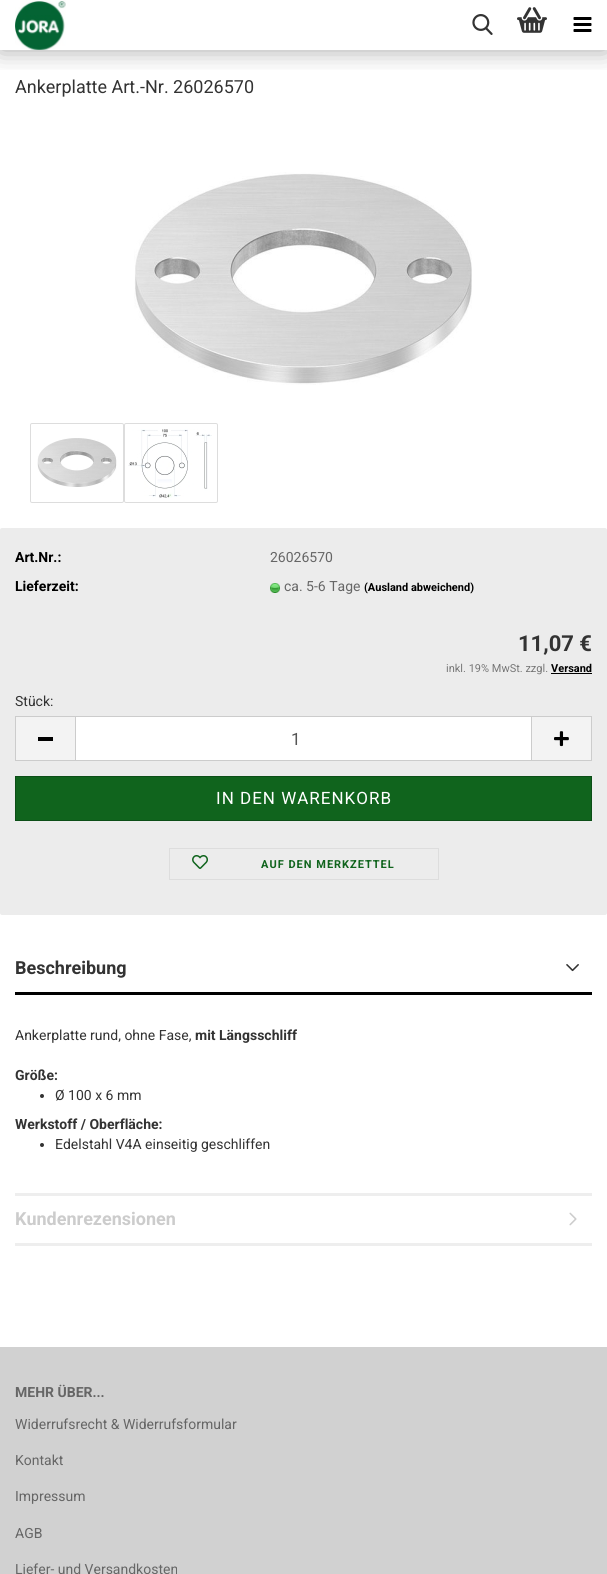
#include <cairo.h>
#include <math.h>
#include <stddef.h>

static cairo_t *c;
static void C(unsigned color){cairo_set_source_rgb(c, (color >> 16) / 255.0, (color >> 8 & 255) / 255.0, (color & 255) / 255.0);}
static void F(const char *family, double size, int italic, int bold){cairo_select_font_face(c, family, italic ? CAIRO_FONT_SLANT_ITALIC : CAIRO_FONT_SLANT_NORMAL,bold ? CAIRO_FONT_WEIGHT_BOLD : CAIRO_FONT_WEIGHT_NORMAL);cairo_set_font_size(c, size);}
static void T(double x, double y, const char *s){cairo_move_to(c, x, y);cairo_show_text(c, s);}
static void L(double x, double y, const char *s, double letter, double word){cairo_move_to(c, x, y);while (*s) {char ch[5] = {0};int n = 0;do ch[n++] = *s++; while ((*s & 0xC0) == 0x80);cairo_show_text(c, ch);cairo_rel_move_to(c, letter + word * (*ch == ' '), 0);}}
static void R(double x, double y, double w, double h){cairo_rectangle(c, x, y, w, h);cairo_fill(c);}
static void Q(double x, double y, double w, double h, double r){cairo_new_sub_path(c);cairo_arc(c, x + w - r, y + h - r, r, 0, M_PI / 2);cairo_arc(c, x + r, y + h - r, r, M_PI / 2, M_PI);cairo_arc(c, x + r, y + r, r, M_PI, 1.5 * M_PI);cairo_arc(c, x + w - r, y + r, r, 1.5 * M_PI, 2 * M_PI);cairo_close_path(c);}
static void S(double x, double y, double w, double h, double r, double blur, double alpha){cairo_push_group_with_content(c, CAIRO_CONTENT_ALPHA);cairo_set_operator(c, CAIRO_OPERATOR_SOURCE);for (int i = 15; i >= -15 && fmin(w, h) + blur * i / 3 > 0; i -= 2) {double e = blur * i / 6;cairo_set_source_rgba(c, 0, 0, 0, alpha * erfc((i - 1) / 8.5) / 2);Q(x - e, y - e, w + 2 * e, h + 2 * e, fmax(0, fmin(r + e + blur * .6, fmin(w, h) / 2 + e)));cairo_fill(c);}cairo_pattern_t *soft = cairo_pop_group(c);cairo_mask(c, soft);cairo_pattern_destroy(soft);}
static void I(const char *path, double x, double y, double w, double h){cairo_surface_t *image = cairo_image_surface_create_from_png(path);cairo_save(c);cairo_set_source_surface(c, image, x, y);cairo_rectangle(c, x, y, w, h);cairo_fill(c);cairo_restore(c);cairo_surface_destroy(image);}
int main(void) {
cairo_surface_t *surface = cairo_image_surface_create(CAIRO_FORMAT_RGB24, 607, 1574);
c = cairo_create(surface);
cairo_font_options_t *options = cairo_font_options_create();
cairo_font_options_set_hint_metrics(options, CAIRO_HINT_METRICS_OFF);
cairo_font_options_set_hint_style(options, CAIRO_HINT_STYLE_NONE);
cairo_set_font_options(c, options);
cairo_set_miter_limit(c, 4);
C(0xffffff);
cairo_paint(c);
cairo_save(c);
cairo_rectangle(c,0,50,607,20);
cairo_clip(c);
C(0x000000);
S(0,0,607,50,0,12.5,.35);
cairo_restore(c);
I("1.png",15,0,51,50);
I("2.png",472,14,21,21);
I("3.png",517,7,30,26);
I("4.png",573,17,19,15);
F("Roboto",18,0,0);
C(0x333333);
T(15,93,"Ankerplatte Art.-Nr. 26026570");
I("5.png",134,172,338,213);
Q(30.5,423.5,93,79,1.5);
C(0xdddddd);
cairo_set_line_width(c,1);
cairo_stroke(c);
I("6.png",37,438,80,49);
Q(124.5,423.5,93,79,1.5);
cairo_stroke(c);
I("7.png",128,429,84,69);
C(0xececec);
Q(0,528,607,387,2);
cairo_fill(c);
F("Roboto",14,0,1);
C(0x000000);
T(15,562,"Art.Nr.:");
F("Roboto",14,0,0);
C(0x666666);
T(270,562,"26026570");
F("Roboto",14,0,1);
C(0x000000);
T(15,591,"Lieferzeit:");
I("8.png",270,583,10,10);
F("Roboto",14,0,0);
C(0x666666);
T(284,591,"ca. 5-6 Tage");
F("Roboto",11,0,1);
C(0x000000);
T(364,591,"(Ausland abweichend)");
F("Roboto",22,0,1);
C(0x333333);
T(518,651,"11,07 €");
F("Roboto",11,0,0);
C(0x777777);
T(446,672,"inkl. 19% MwSt. zzgl.");
F("Roboto",11,0,1);
C(0x000000);
T(551,672,"Versand");
R(551,673,41,1);
F("Roboto",14,0,0);
C(0x333333);
T(15,706,"Stück:");
C(0xf3f3f3);
R(16,717,59,43);
C(0xcccccc);
R(15,716,60,1);
R(15,760,60,1);
R(15,716,1,45);
C(0x000000);
R(38,737,15,4);
C(0xffffff);
cairo_rectangle(c,75.5,716.5,456,44);
cairo_fill_preserve(c);
C(0xcccccc);
cairo_stroke(c);
F("Roboto",17,0,0);
C(0x555555);
T(291,745,"1");
C(0xf3f3f3);
R(532,717,59,43);
C(0xcccccc);
R(532,716,60,1);
R(591,716,1,45);
R(532,760,60,1);
I("9.png",554,731,15,16);
C(0x10641d);
cairo_rectangle(c,15.5,776.5,576,44);
cairo_fill_preserve(c);
C(0x0c4e17);
cairo_stroke(c);
C(0xffffff);
L(216,804,"IN DEN WARENKORB",1,0);
cairo_rectangle(c,169.5,848.5,269,31);
C(0xdddddd);
cairo_stroke(c);
I("10.png",192,855,16,14);
F("Roboto",11,0,1);
C(0x10641d);
L(261,868,"AUF DEN MERKZETTEL",1,0);
C(0x000000);
R(15,992,577,3);
F("Roboto",18,0,1);
C(0x333333);
T(15,974,"Beschreibung");
I("11.png",566,964,13,8);
C(0xeeeeee);
R(15,1193,577,3);
F("Roboto",14,0,0);
C(0x333333);
T(15,1040,"Ankerplatte rund, ohne Fase,");
F("Roboto",14,0,1);
T(195,1040,"mit Längsschliff");
T(15,1080,"Größe:");
cairo_new_path(c);
cairo_arc(c,42,1096,2,0,2 * M_PI);
cairo_fill(c);
F("Roboto",14,0,0);
T(55,1100,"Ø 100 x 6 mm");
F("Roboto",14,0,1);
T(15,1129,"Werkstoff / Oberfläche:");
cairo_new_path(c);
cairo_arc(c,42,1145,2,0,2 * M_PI);
cairo_fill(c);
F("Roboto",14,0,0);
T(55,1149,"Edelstahl V4A einseitig geschliffen");
C(0xeeeeee);
R(15,1243,577,3);
F("Roboto",18,0,1);
C(0xcccccc);
T(15,1225,"Kundenrezensionen");
I("12.png",569,1212,8,14);
C(0xd1d1d1);
R(0,1347,607,227);
F("Roboto",14,0,1);
C(0x666666);
T(15,1397,"MEHR ÜBER...");
F("Roboto",14,0,0);
T(15,1429,"Widerrufsrecht & Widerrufsformular");
T(15,1465,"Kontakt");
T(15,1501,"Impressum");
T(15,1538,"AGB");
T(15,1574,"Liefer- und Versandkosten");
cairo_surface_write_to_png(surface, "o.png");
cairo_font_options_destroy(options);
cairo_destroy(c);
cairo_surface_destroy(surface);
return 0;
}
